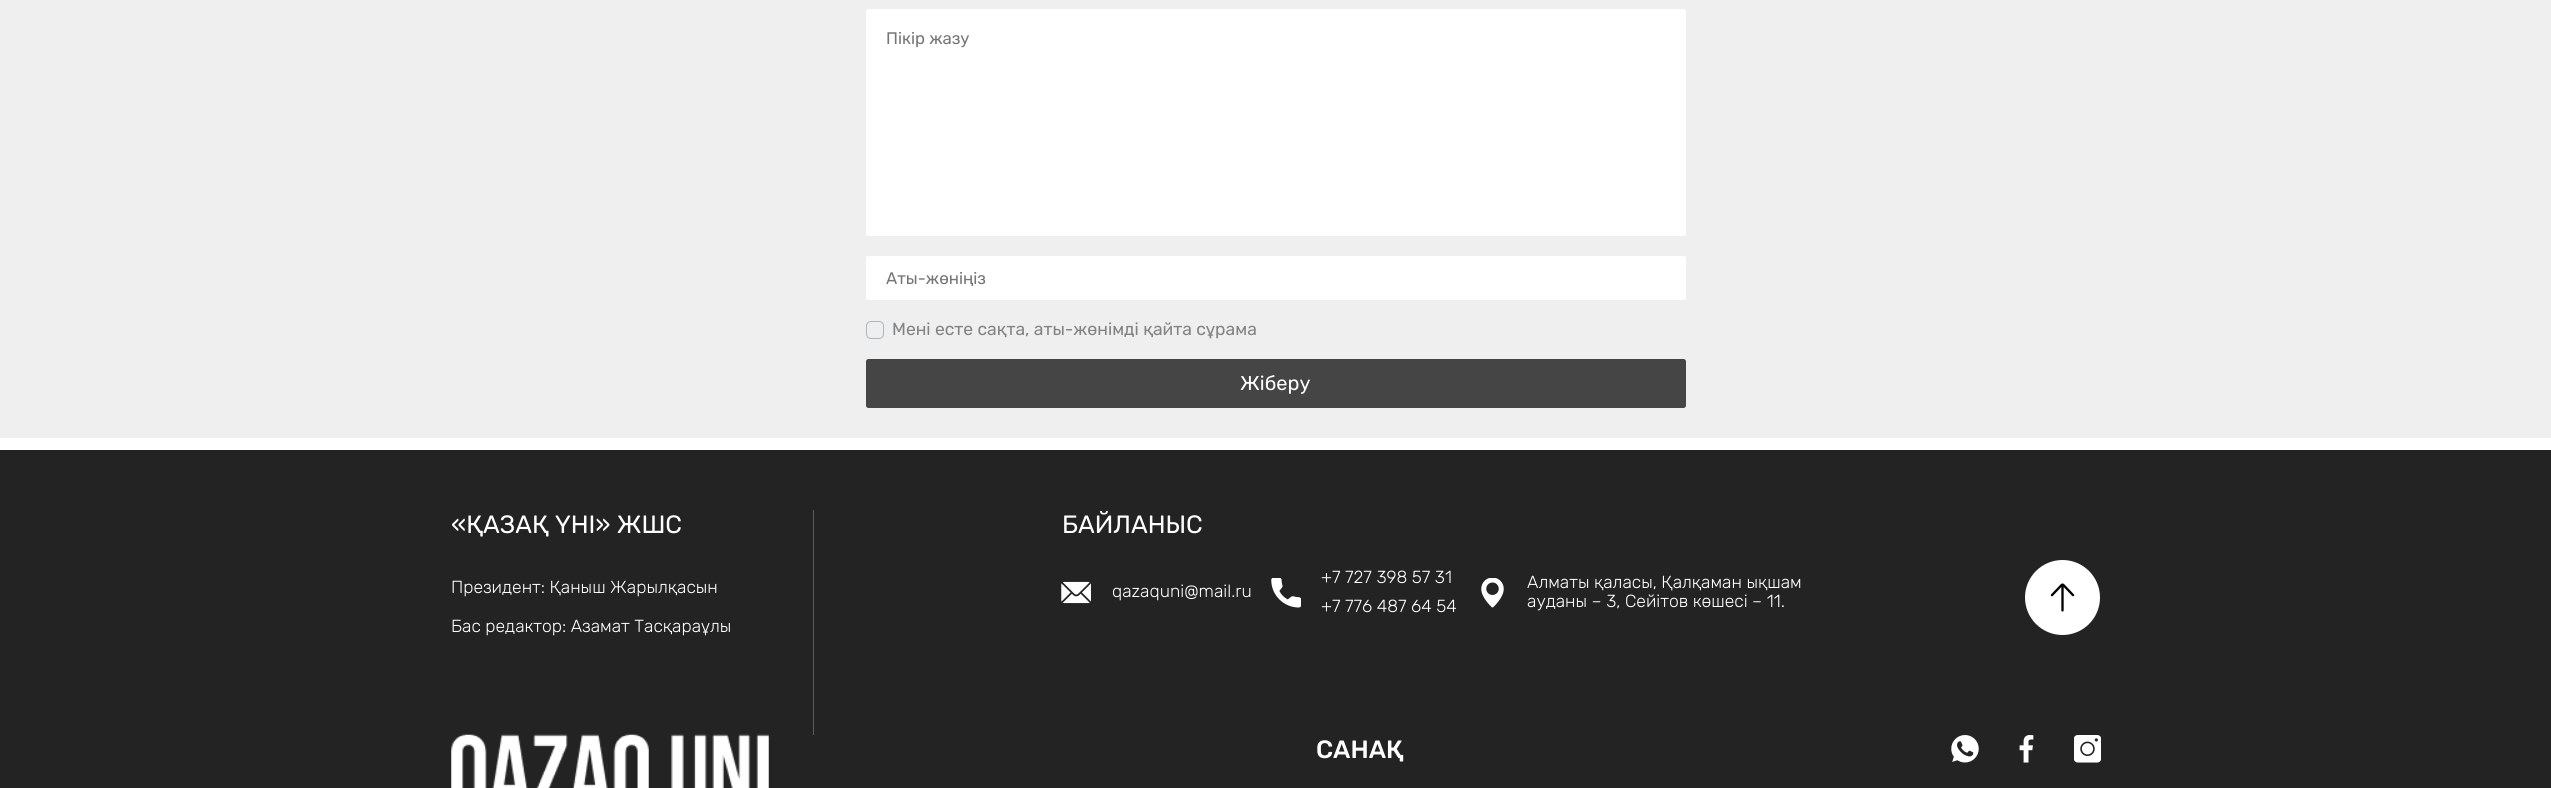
#include <cairo.h>
#include <math.h>
#include <stddef.h>

static cairo_t *c;
static void C(unsigned color){cairo_set_source_rgb(c, (color >> 16) / 255.0, (color >> 8 & 255) / 255.0, (color & 255) / 255.0);}
static void F(const char *family, double size, int italic, int bold){cairo_select_font_face(c, family, italic ? CAIRO_FONT_SLANT_ITALIC : CAIRO_FONT_SLANT_NORMAL,bold ? CAIRO_FONT_WEIGHT_BOLD : CAIRO_FONT_WEIGHT_NORMAL);cairo_set_font_size(c, size);}
static void T(double x, double y, const char *s){cairo_move_to(c, x, y);cairo_show_text(c, s);}
static void R(double x, double y, double w, double h){cairo_rectangle(c, x, y, w, h);cairo_fill(c);}
static void Q(double x, double y, double w, double h, double r){cairo_new_sub_path(c);cairo_arc(c, x + w - r, y + h - r, r, 0, M_PI / 2);cairo_arc(c, x + r, y + h - r, r, M_PI / 2, M_PI);cairo_arc(c, x + r, y + r, r, M_PI, 1.5 * M_PI);cairo_arc(c, x + w - r, y + r, r, 1.5 * M_PI, 2 * M_PI);cairo_close_path(c);}
static void I(const char *path, double x, double y, double w, double h){cairo_surface_t *image = cairo_image_surface_create_from_png(path);cairo_save(c);cairo_set_source_surface(c, image, x, y);cairo_rectangle(c, x, y, w, h);cairo_fill(c);cairo_restore(c);cairo_surface_destroy(image);}
int main(void) {
cairo_surface_t *surface = cairo_image_surface_create(CAIRO_FORMAT_RGB24, 2551, 788);
c = cairo_create(surface);
cairo_font_options_t *options = cairo_font_options_create();
cairo_font_options_set_hint_metrics(options, CAIRO_HINT_METRICS_OFF);
cairo_font_options_set_hint_style(options, CAIRO_HINT_STYLE_NONE);
cairo_set_font_options(c, options);
cairo_set_miter_limit(c, 4);
C(0xffffff);
cairo_paint(c);
C(0xefefef);
R(0,0,2551,438);
C(0xffffff);
Q(866,9,820,227,2.5);
cairo_fill(c);
F("Rubik",16.75,0,0);
C(0x757575);
T(886,44,"Пікір жазу");
C(0xffffff);
Q(866,256,820,44,2.5);
cairo_fill(c);
C(0x757575);
T(886,284,"Аты-жөніңіз");
Q(866.5,321.5,17,17,4.5);
C(0xadb5bd);
cairo_set_line_width(c,1);
cairo_stroke(c);
F("Rubik",17.5,0,0);
C(0x838383);
T(892,335,"Мені есте сақта, аты-жөнімді қайта сұрама");
C(0x454545);
Q(866,359,820,49,2.5);
cairo_fill(c);
F("Rubik",20,0,0);
C(0xffffff);
T(1240,390,"Жіберу");
C(0x232323);
R(0,450,2551,338);
C(0x5b5b5b);
R(813,510,1,225);
F("Rubik",25,0,0);
C(0xffffff);
T(451,533,"«ҚАЗАҚ ҮНІ» ЖШС");
F("Rubik Light",17.5,0,0);
T(451,593,"Президент: Қаныш Жарылқасын");
T(451,632,"Бас редактор: Азамат Тасқараұлы");
F("Rubik",25,0,0);
T(1062,533,"БАЙЛАНЫС");
I("1.png",1061,581,30,23);
F("Rubik Light",17.5,0,0);
T(1112,597,"qazaquni@mail.ru");
I("2.png",1271,578,30,30);
T(1321,583,"+7 727 398 57 31");
T(1321,612,"+7 776 487 64 54");
I("3.png",1481,578,23,30);
T(1527,588,"Алматы қаласы, Қалқаман ықшам");
T(1527,607,"ауданы – 3, Сейітов көшесі – 11.");
cairo_new_path(c);
cairo_arc(c,2062.5,597.5,37.5,0,2 * M_PI);
cairo_fill(c);
I("4.png",2050,583,25,29);
I("5.png",451,734,318,54);
F("Rubik Medium",25,0,0);
T(1316,758,"САНАҚ");
I("6.png",1951,735,28,28);
I("7.png",2019,735,15,28);
I("8.png",2074,735,27,28);
cairo_surface_write_to_png(surface, "o.png");
cairo_font_options_destroy(options);
cairo_destroy(c);
cairo_surface_destroy(surface);
return 0;
}
